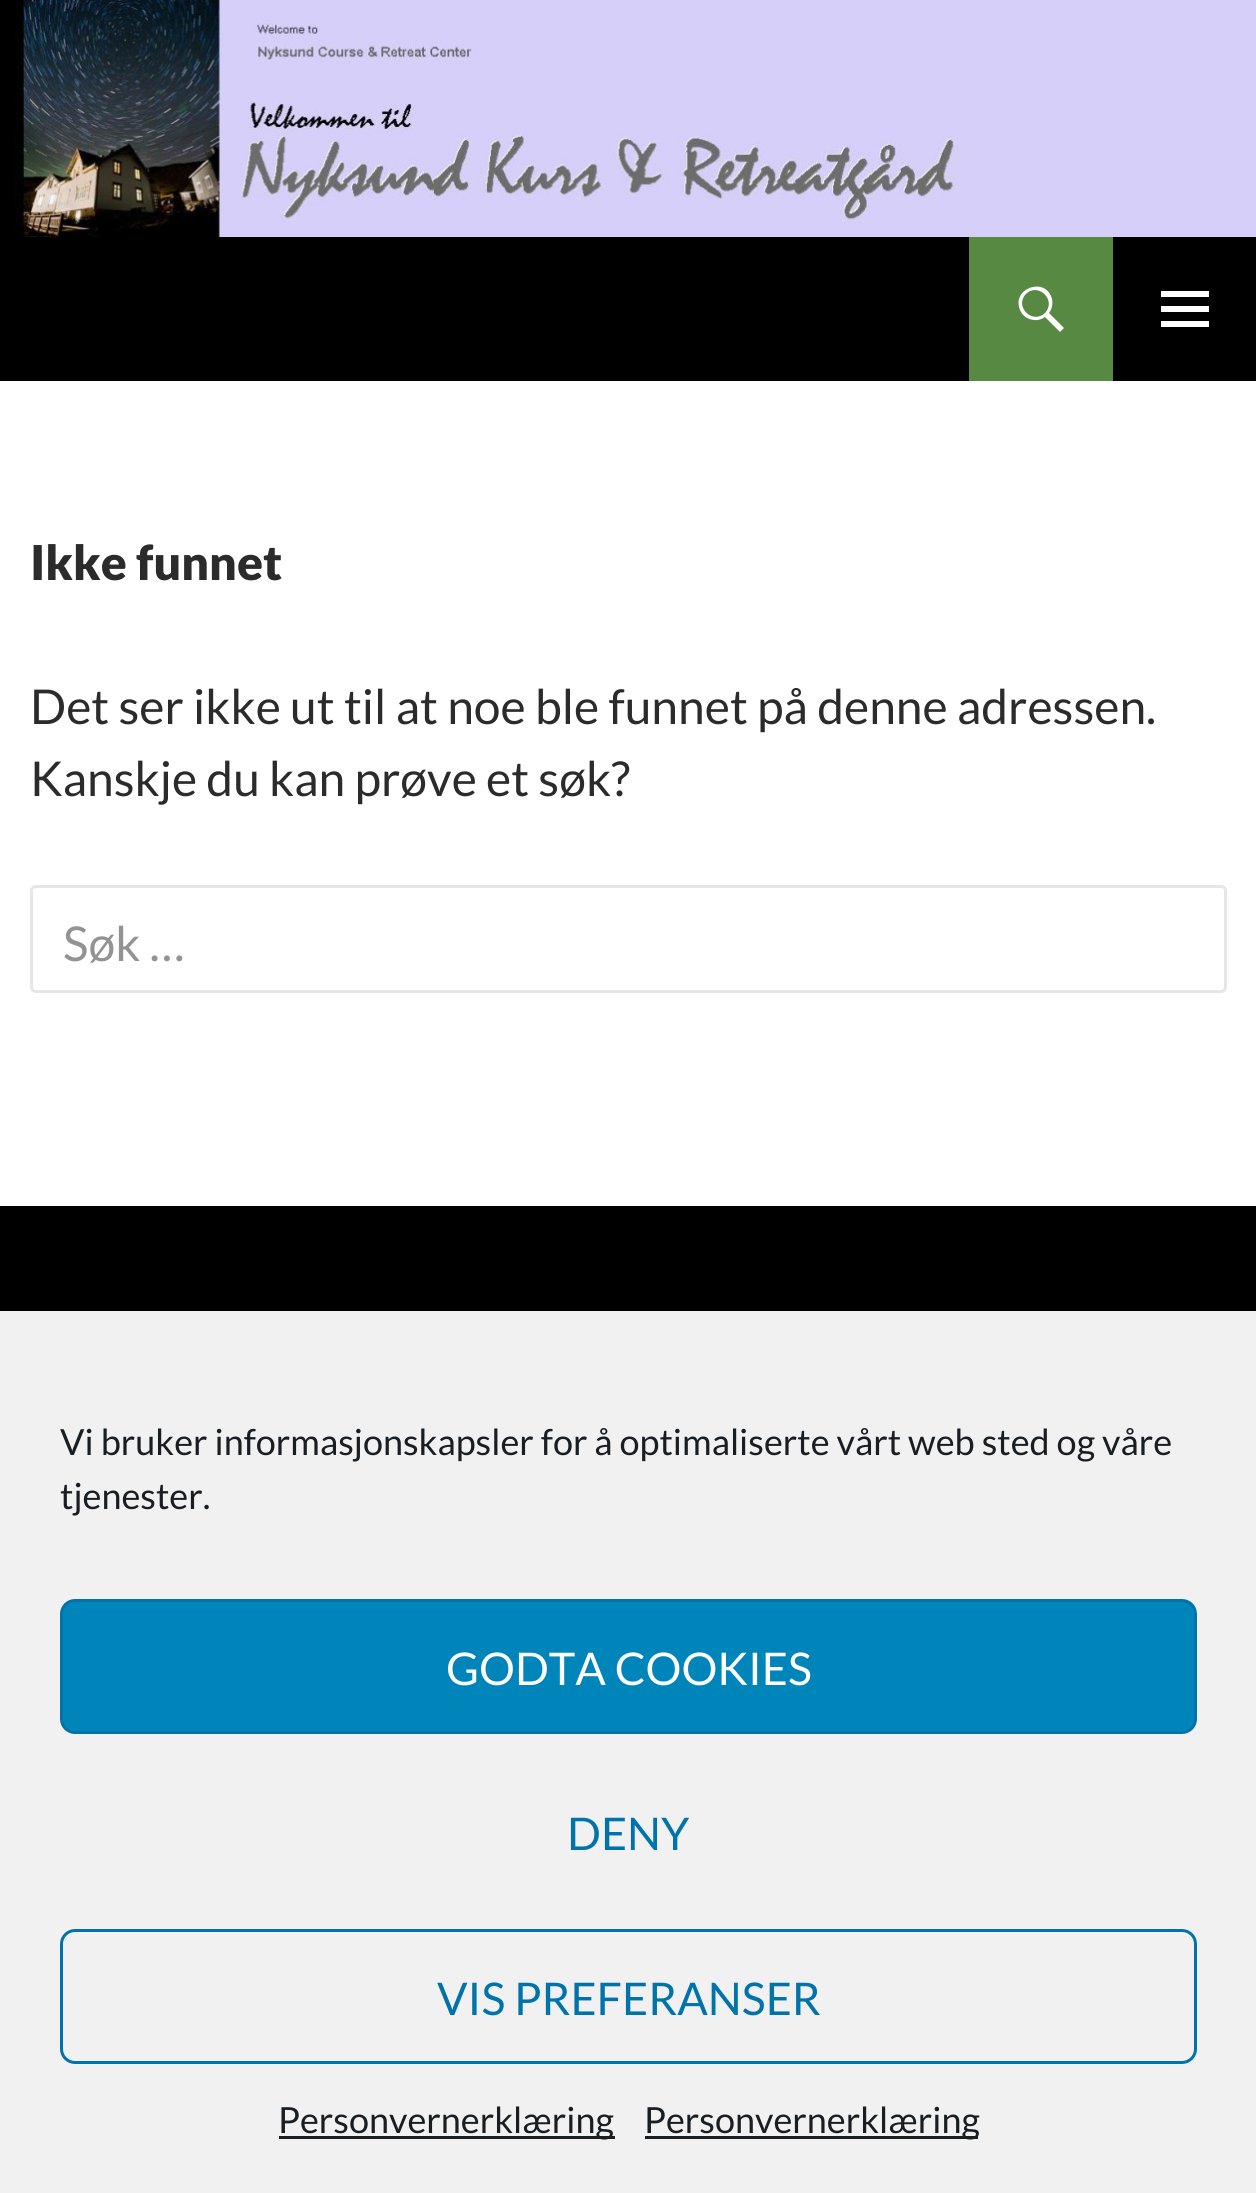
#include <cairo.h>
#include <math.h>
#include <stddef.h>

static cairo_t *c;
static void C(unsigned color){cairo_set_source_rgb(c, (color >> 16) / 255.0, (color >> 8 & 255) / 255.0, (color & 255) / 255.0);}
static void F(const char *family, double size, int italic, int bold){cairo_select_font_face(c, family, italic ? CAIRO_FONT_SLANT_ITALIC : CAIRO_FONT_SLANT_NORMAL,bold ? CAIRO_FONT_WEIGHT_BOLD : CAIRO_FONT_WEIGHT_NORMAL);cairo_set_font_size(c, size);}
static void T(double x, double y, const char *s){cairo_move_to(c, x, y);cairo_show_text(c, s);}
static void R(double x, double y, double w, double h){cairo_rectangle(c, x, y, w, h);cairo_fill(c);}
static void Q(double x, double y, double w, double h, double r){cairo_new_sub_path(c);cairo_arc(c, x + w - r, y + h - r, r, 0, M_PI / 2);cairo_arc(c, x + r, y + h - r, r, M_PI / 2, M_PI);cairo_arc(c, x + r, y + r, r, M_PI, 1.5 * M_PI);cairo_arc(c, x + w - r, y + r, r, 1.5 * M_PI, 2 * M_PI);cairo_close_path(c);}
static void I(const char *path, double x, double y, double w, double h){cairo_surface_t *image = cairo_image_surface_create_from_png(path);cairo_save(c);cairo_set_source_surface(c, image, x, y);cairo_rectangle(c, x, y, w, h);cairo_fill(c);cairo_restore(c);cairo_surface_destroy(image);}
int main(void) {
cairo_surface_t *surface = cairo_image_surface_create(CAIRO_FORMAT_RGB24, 1256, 2193);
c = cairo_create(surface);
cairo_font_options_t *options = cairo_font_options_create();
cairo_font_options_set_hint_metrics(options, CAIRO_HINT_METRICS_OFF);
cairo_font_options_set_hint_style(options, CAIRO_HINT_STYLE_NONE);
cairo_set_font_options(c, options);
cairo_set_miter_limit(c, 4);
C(0xffffff);
cairo_paint(c);
I("1.png",0,0,1256,237);
C(0x000000);
R(0,237,1256,144);
C(0x588943);
R(969,237,144,144);
C(0xffffff);
cairo_new_path(c);
cairo_move_to(c,1020,310);
cairo_curve_to(c,1011,288,1046,276,1052,299);
cairo_curve_to(c,1053,304,1052,309,1049,313);
cairo_line_to(c,1064,328);
cairo_line_to(c,1060,332);
cairo_line_to(c,1045,317);
cairo_curve_to(c,1037,323,1024,320,1020,310);
cairo_close_path(c);
cairo_move_to(c,1026,294);
cairo_curve_to(c,1014,306,1032,325,1045,313);
cairo_curve_to(c,1057,300,1038,282,1026,294);
cairo_close_path(c);
cairo_fill(c);
cairo_new_path(c);
cairo_move_to(c,1161,327);
cairo_line_to(c,1161,321);
cairo_line_to(c,1209,321);
cairo_line_to(c,1209,327);
cairo_close_path(c);
cairo_move_to(c,1161,312);
cairo_line_to(c,1161,306);
cairo_line_to(c,1209,306);
cairo_line_to(c,1209,312);
cairo_close_path(c);
cairo_move_to(c,1161,297);
cairo_line_to(c,1161,291);
cairo_line_to(c,1209,291);
cairo_line_to(c,1209,297);
cairo_close_path(c);
cairo_fill(c);
F("Lato Black",48,0,0);
C(0x2b2b2b);
T(30,580,"Ikke funnet");
F("Lato",48,0,0);
T(30,724,"Det ser ikke ut til at noe ble funnet på denne adressen.");
T(30,796,"Kanskje du kan prøve et søk?");
Q(31.5,886.5,1194,105,4.5);
C(0xe6e6e6);
cairo_set_line_width(c,3);
cairo_stroke(c);
C(0x939393);
T(63,961,"Søk …");
C(0x000000);
R(0,1206,1256,105);
C(0xf1f1f1);
R(0,1311,1256,882);
F("Lato",36,0,0);
C(0x191e23);
T(60,1455,"Vi bruker informasjonskapsler for å optimaliserte vårt web sted og våre");
T(60,1509,"tjenester.");
C(0x0085ba);
Q(61.5,1600.5,1134,132,13.5);
cairo_fill_preserve(c);
C(0x0073aa);
cairo_stroke(c);
F("Lato",45,0,0);
C(0xffffff);
T(446,1685,"GODTA COOKIES");
C(0x0073aa);
T(567,1850,"DENY");
Q(61.5,1930.5,1134,132,13.5);
cairo_stroke(c);
T(437,2015,"VIS PREFERANSER");
C(0x191e23);
R(279,2136,336,3);
F("Lato",36,0,0);
T(278,2133,"Personvernerklæring");
R(645,2136,333,3);
T(644,2133,"Personvernerklæring");
cairo_surface_write_to_png(surface, "o.png");
cairo_font_options_destroy(options);
cairo_destroy(c);
cairo_surface_destroy(surface);
return 0;
}
